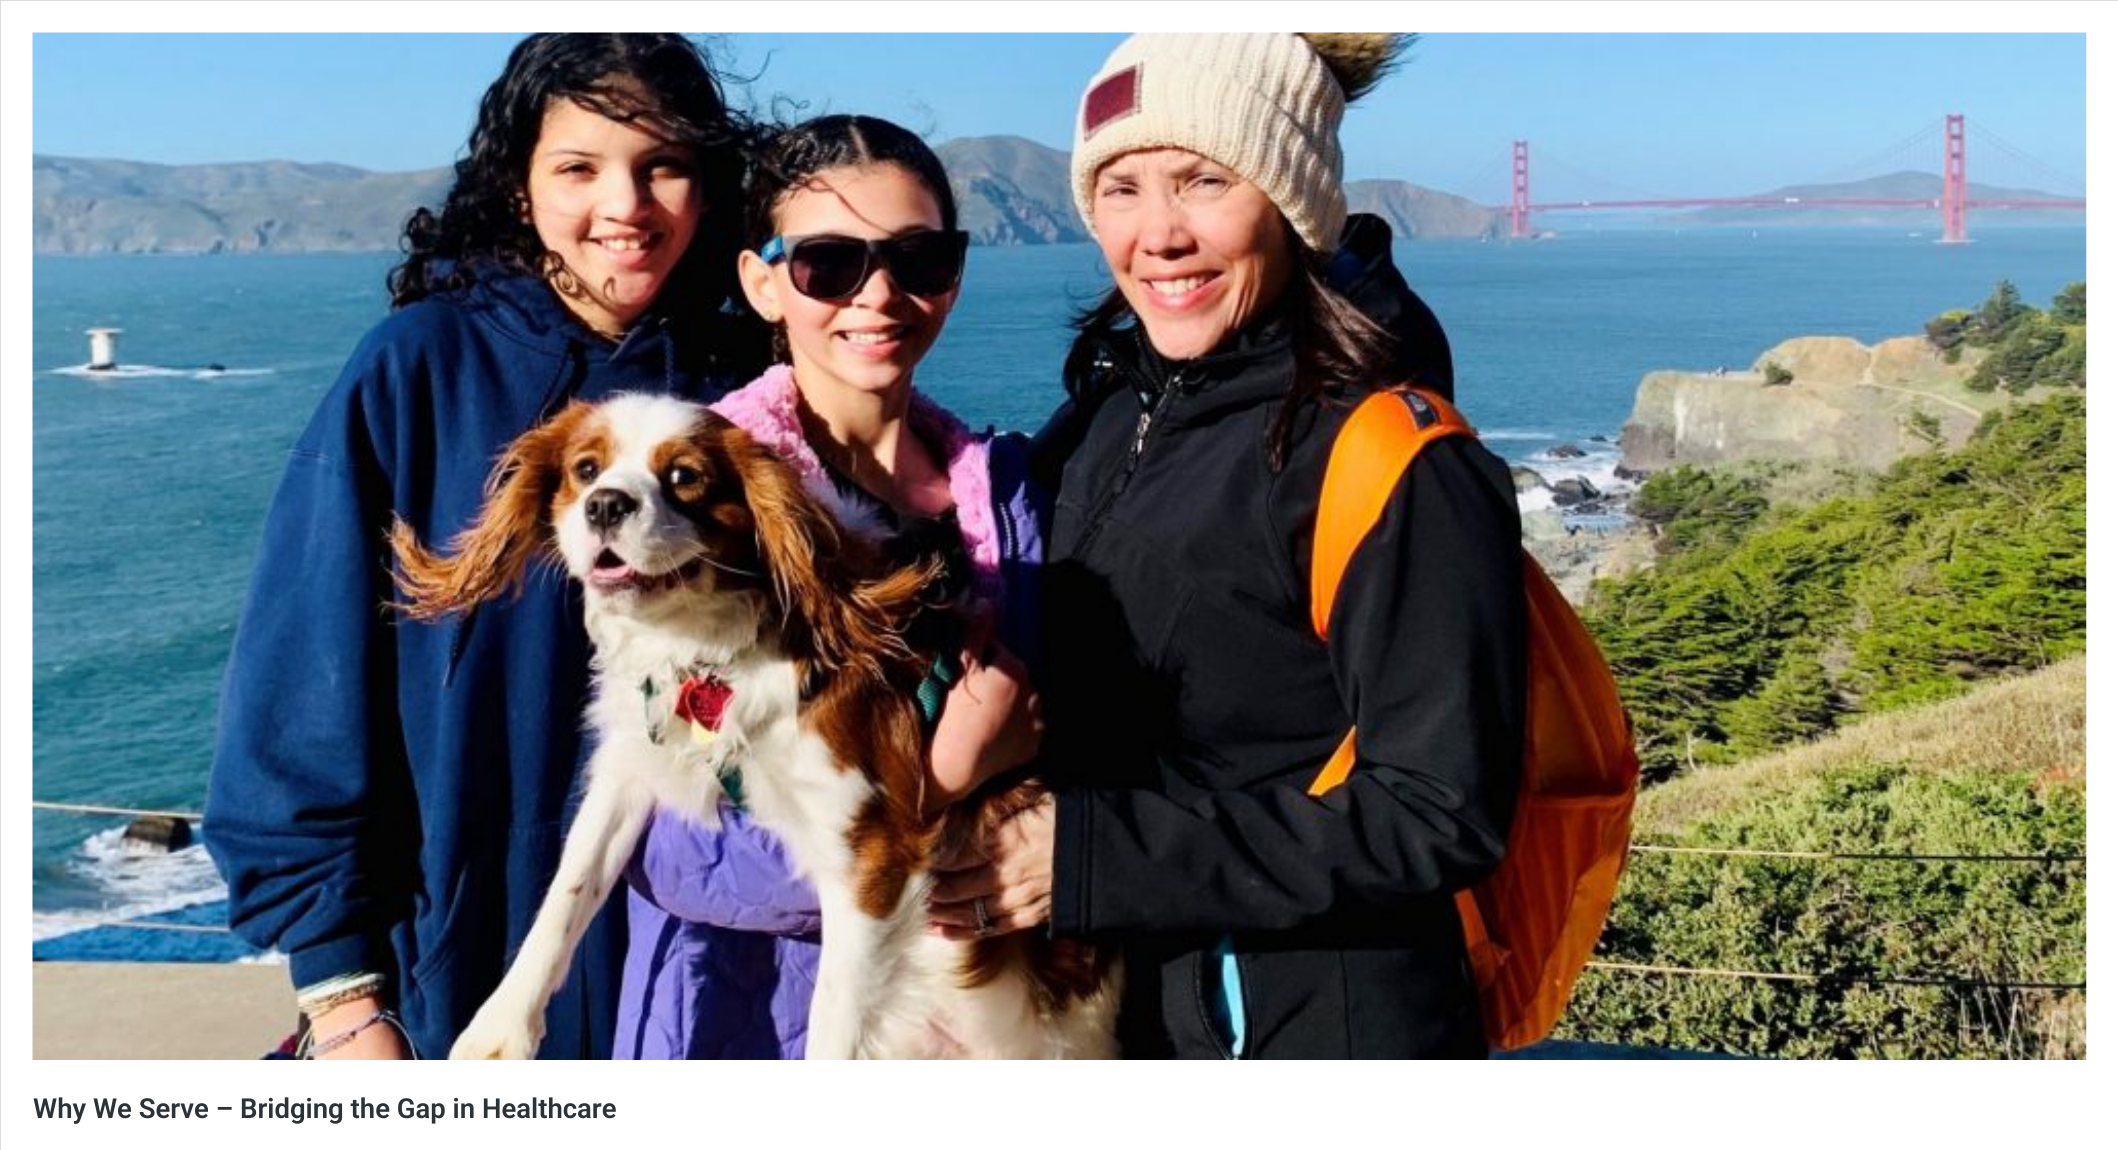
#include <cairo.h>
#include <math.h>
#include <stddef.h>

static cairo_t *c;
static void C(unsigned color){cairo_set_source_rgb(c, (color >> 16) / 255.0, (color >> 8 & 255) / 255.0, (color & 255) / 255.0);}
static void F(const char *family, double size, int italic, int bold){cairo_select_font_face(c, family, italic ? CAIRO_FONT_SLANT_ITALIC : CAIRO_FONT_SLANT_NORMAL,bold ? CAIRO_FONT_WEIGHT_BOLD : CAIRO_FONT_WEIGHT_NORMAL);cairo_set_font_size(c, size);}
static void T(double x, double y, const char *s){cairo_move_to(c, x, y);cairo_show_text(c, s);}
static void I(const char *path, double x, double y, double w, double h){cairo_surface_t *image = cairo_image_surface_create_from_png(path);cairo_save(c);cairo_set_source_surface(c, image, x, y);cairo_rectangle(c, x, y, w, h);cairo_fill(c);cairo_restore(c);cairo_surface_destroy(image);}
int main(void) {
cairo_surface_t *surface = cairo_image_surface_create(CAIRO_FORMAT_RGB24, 2118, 1150);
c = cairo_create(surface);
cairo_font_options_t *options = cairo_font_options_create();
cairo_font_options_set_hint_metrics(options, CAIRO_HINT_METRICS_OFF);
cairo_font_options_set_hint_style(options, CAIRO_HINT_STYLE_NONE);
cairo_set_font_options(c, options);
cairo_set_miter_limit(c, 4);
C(0xffffff);
cairo_paint(c);
cairo_rectangle(c,.5,.5,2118,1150);
C(0xdcdcde);
cairo_set_line_width(c,1);
cairo_stroke(c);
I("1.png",32,32,2055,1028);
F("Roboto SemiBold",27.5,0,0);
C(0x2c3338);
T(33,1118,"Why We Serve – Bridging the Gap in Healthcare");
cairo_surface_write_to_png(surface, "o.png");
cairo_font_options_destroy(options);
cairo_destroy(c);
cairo_surface_destroy(surface);
return 0;
}
